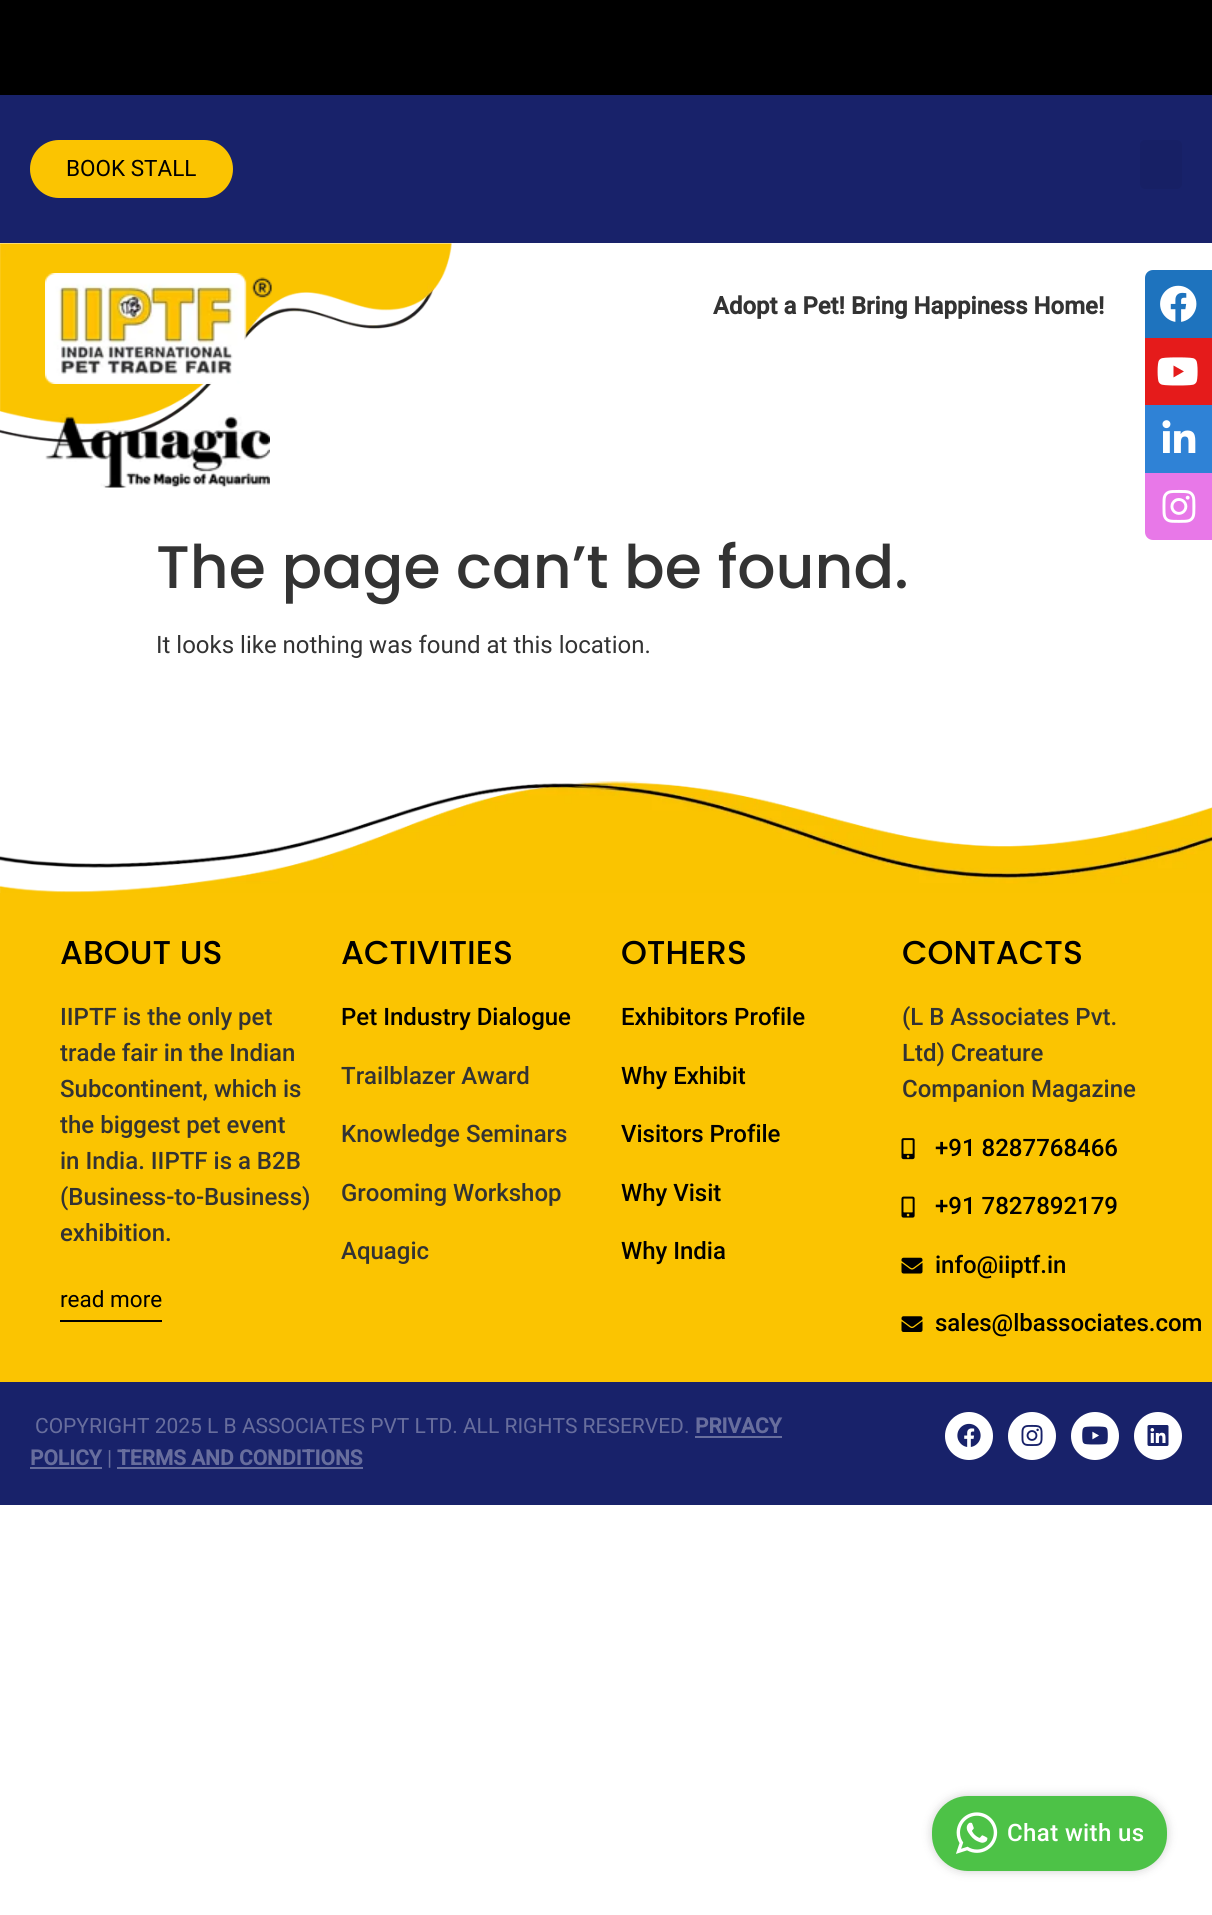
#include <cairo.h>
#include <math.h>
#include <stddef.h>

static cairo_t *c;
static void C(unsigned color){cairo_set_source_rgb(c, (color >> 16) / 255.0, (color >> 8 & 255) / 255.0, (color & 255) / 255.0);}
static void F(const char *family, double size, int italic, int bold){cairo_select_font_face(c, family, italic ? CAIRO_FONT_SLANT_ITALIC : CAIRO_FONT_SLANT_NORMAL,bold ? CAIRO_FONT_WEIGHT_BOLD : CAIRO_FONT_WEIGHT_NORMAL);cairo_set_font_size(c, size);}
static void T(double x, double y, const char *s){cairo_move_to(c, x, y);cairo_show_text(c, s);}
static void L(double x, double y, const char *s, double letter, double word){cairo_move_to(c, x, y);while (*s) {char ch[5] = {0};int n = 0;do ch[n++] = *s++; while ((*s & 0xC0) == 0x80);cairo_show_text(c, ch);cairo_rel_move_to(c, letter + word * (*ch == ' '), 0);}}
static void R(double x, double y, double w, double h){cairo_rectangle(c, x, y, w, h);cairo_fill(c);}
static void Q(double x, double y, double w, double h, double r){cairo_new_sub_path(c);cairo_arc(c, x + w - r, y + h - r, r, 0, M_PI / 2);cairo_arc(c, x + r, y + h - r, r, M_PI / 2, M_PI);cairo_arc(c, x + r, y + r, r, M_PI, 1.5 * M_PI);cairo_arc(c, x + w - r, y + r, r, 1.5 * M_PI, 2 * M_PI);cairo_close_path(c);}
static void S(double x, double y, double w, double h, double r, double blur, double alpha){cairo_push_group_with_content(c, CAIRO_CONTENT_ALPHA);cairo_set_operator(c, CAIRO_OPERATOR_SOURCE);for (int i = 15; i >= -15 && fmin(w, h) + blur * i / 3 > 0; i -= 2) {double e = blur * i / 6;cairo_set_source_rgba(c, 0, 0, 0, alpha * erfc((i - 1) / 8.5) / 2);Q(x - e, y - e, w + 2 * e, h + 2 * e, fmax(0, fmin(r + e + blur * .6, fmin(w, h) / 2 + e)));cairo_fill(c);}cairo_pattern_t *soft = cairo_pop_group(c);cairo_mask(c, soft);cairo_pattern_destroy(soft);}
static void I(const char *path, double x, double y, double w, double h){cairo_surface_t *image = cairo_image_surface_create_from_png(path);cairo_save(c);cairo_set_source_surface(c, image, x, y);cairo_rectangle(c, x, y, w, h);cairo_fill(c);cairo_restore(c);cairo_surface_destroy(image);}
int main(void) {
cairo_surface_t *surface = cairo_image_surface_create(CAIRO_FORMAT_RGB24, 1212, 1915);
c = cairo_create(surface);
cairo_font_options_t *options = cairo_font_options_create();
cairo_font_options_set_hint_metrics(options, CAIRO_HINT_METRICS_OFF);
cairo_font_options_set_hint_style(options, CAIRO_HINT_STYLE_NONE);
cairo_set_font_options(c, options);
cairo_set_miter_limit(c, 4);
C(0xffffff);
cairo_paint(c);
C(0x000000);
R(0,0,1212,95);
C(0x18226a);
R(0,95,1212,148);
C(0xfbc401);
Q(30,140,203,58,29);
cairo_fill(c);
F("Roboto",22.5,0,0);
C(0x000000);
T(66,176,"BOOK STALL");
C(0x172065);
Q(1140,140,42,49,5);
cairo_fill(c);
I("1.png",0,243,452,200);
I("2.png",45,273,227,111);
I("3.png",45,414,225,74);
F("Roboto",24,0,1);
C(0x333333);
T(713,314,"Adopt a Pet! Bring Happiness Home!");
C(0x1e73be);
cairo_new_path(c);
cairo_move_to(c,1153,270);
cairo_line_to(c,1212,270);
cairo_line_to(c,1212,338);
cairo_line_to(c,1145,338);
cairo_line_to(c,1145,278);
cairo_curve_to(c,1145,273.5,1148.5,270,1153,270);
cairo_close_path(c);
cairo_fill(c);
I("4.png",1160,285,37,37);
C(0xe51b1b);
R(1145,338,67,67);
I("5.png",1157,357,41,29);
C(0x2f82d6);
R(1145,405,67,68);
I("6.png",1162,420,34,33);
C(0xe878e8);
cairo_new_path(c);
cairo_move_to(c,1145,473);
cairo_line_to(c,1212,473);
cairo_line_to(c,1212,540);
cairo_line_to(c,1153,540);
cairo_curve_to(c,1148.5,540,1145,536.5,1145,532);
cairo_close_path(c);
cairo_fill(c);
I("7.png",1162,489,34,34);
F("Poppins Medium",60,0,0);
C(0x333333);
T(156,588,"The page can’t be found.");
F("Roboto",24,0,0);
T(156,653,"It looks like nothing was found at this location.");
I("8.png",0,781,1212,112);
C(0xfbc401);
R(0,893,1212,489);
F("Poppins Medium",33,0,0);
C(0x000000);
T(60,964,"ABOUT US");
F("Roboto Medium",24,0,0);
C(0x333333);
T(60,1025,"IIPTF is the only pet");
T(60,1061,"trade fair in the Indian");
T(60,1097,"Subcontinent, which is");
T(60,1133,"the biggest pet event");
T(60,1169,"in India. IIPTF is a B2B");
T(60,1205,"(Business-to-Business)");
T(60,1241,"exhibition.");
C(0x000000);
R(60,1320,102,2);
F("Roboto",22.5,0,0);
T(60,1307,"read more");
F("Poppins Medium",33,0,0);
T(341,964,"ACTIVITIES");
F("Roboto Medium",24,0,0);
T(341,1025,"Pet Industry Dialogue");
C(0x333333);
T(341,1084,"Trailblazer Award");
T(341,1142,"Knowledge Seminars");
T(341,1201,"Grooming Workshop");
T(341,1259,"Aquagic");
F("Poppins Medium",33,0,0);
C(0x000000);
T(621,964,"OTHERS");
F("Roboto Medium",24,0,0);
T(621,1025,"Exhibitors Profile");
T(621,1084,"Why Exhibit");
T(621,1142,"Visitors Profile");
T(621,1201,"Why Visit");
T(621,1259,"Why India");
F("Poppins Medium",33,0,0);
T(902,964,"CONTACTS");
F("Roboto Medium",24,0,0);
C(0x333333);
T(902,1025,"(L B Associates Pvt.");
T(902,1061,"Ltd) Creature");
T(902,1097,"Companion Magazine");
I("9.png",901,1138,14,22);
C(0x000000);
T(935,1156,"+91 8287768466");
I("10.png",901,1196,14,22);
T(935,1214,"+91 7827892179");
I("11.png",901,1257,22,17);
T(935,1273,"info@iiptf.in");
I("12.png",901,1316,22,16);
T(935,1331,"sales@lbassociates.com");
C(0x18226a);
R(0,1382,1212,123);
F("Roboto",21,0,0);
C(0x686e9d);
T(35,1433,"COPYRIGHT 2025 L B ASSOCIATES PVT LTD. ALL RIGHTS RESERVED.");
F("Roboto",21,0,1);
T(695,1433,"PRIVACY");
R(695,1436,87,2);
T(30,1465,"POLICY");
R(30,1467,72,2);
F("Roboto",21,0,0);
T(107,1465,"|");
F("Roboto",21,0,1);
T(117,1465,"TERMS AND CONDITIONS");
R(117,1467,246,2);
C(0xffffff);
cairo_new_path(c);
cairo_arc(c,969,1436,24,0,2 * M_PI);
cairo_fill(c);
I("13.png",957,1423,24,24);
cairo_arc(c,1032,1436,24,0,2 * M_PI);
cairo_fill(c);
I("14.png",1021,1424,22,22);
cairo_arc(c,1095,1436,24,0,2 * M_PI);
cairo_fill(c);
I("15.png",1082,1426,26,19);
cairo_arc(c,1158,1436,24,0,2 * M_PI);
cairo_fill(c);
I("16.png",1147,1425,22,21);
C(0x000000);
S(932,1796,235,75,36,5,.2);
C(0x4dc247);
Q(932,1796,235,75,36);
cairo_fill(c);
I("17.png",956,1812,42,42);
F("Roboto Medium",24,0,0);
C(0xffffff);
L(1007,1841,"Chat with us",.4,0);
cairo_surface_write_to_png(surface, "o.png");
cairo_font_options_destroy(options);
cairo_destroy(c);
cairo_surface_destroy(surface);
return 0;
}
